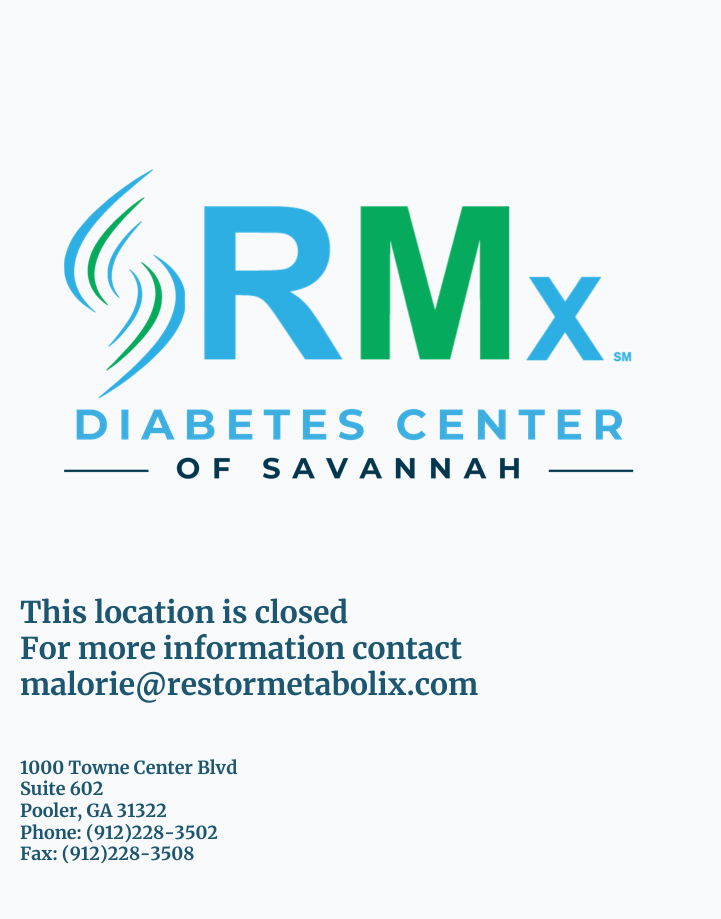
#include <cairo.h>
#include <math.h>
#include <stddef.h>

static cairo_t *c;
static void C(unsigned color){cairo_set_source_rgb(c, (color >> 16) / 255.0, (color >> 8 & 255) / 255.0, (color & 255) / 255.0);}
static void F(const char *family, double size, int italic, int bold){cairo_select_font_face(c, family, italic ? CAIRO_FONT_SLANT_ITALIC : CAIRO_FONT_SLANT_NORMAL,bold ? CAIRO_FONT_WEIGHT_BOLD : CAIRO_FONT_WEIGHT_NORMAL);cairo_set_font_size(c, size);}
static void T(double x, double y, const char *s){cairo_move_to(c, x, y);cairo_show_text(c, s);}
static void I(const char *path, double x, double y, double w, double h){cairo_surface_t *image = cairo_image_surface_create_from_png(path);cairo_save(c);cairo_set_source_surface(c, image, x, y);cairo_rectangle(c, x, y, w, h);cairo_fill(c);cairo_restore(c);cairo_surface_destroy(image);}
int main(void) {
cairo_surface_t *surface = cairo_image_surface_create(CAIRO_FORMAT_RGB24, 721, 919);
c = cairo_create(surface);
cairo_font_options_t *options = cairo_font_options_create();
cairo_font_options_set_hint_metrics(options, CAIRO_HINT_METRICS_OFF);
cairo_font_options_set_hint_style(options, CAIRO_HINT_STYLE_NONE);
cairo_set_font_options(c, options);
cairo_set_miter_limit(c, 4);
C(0xf9fafb);
cairo_paint(c);
I("1.png",63,169,571,310);
F("Merriweather",30,0,1);
C(0x1c5670);
T(20,623,"This location is closed");
T(20,659,"For more information contact");
T(20,695,"malorie@restormetabolix.com");
F("Merriweather",18,0,1);
T(20,774,"1000 Towne Center Blvd");
T(20,795,"Suite 602");
T(20,817,"Pooler, GA 31322");
T(20,839,"Phone: (912)228-3502");
T(20,860,"Fax: (912)228-3508");
cairo_surface_write_to_png(surface, "o.png");
cairo_font_options_destroy(options);
cairo_destroy(c);
cairo_surface_destroy(surface);
return 0;
}
